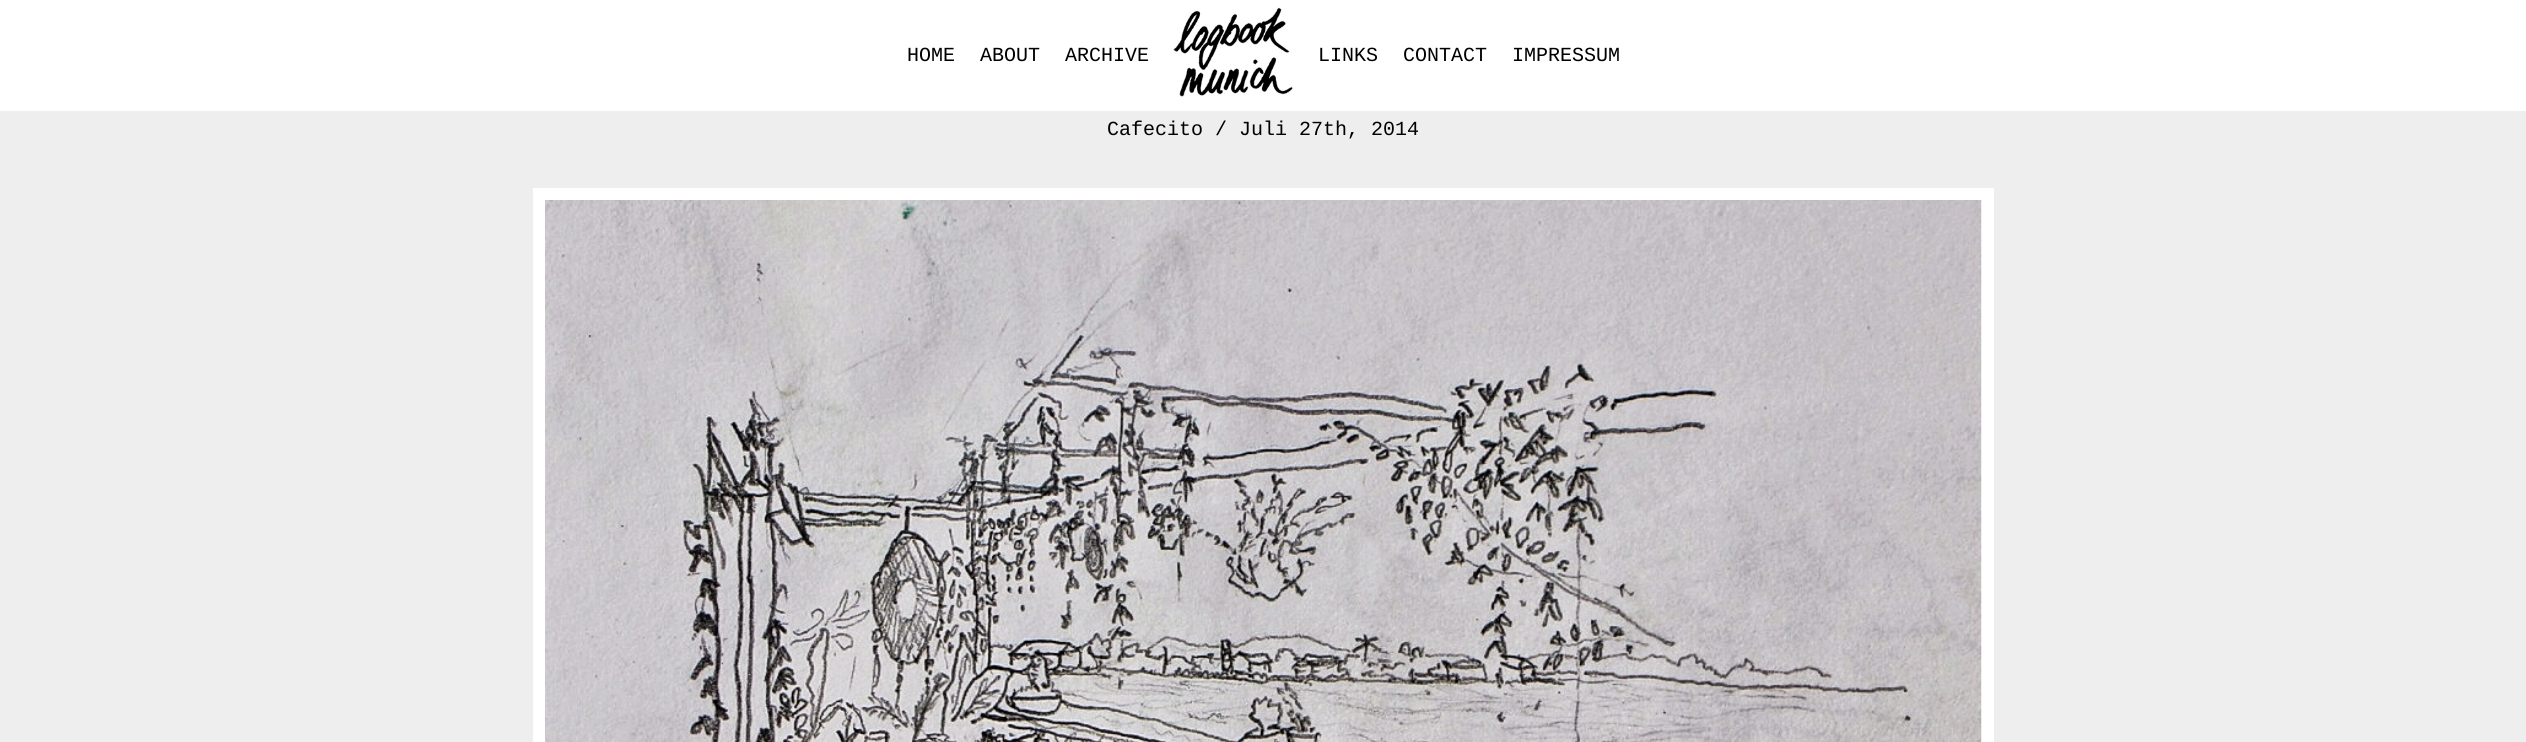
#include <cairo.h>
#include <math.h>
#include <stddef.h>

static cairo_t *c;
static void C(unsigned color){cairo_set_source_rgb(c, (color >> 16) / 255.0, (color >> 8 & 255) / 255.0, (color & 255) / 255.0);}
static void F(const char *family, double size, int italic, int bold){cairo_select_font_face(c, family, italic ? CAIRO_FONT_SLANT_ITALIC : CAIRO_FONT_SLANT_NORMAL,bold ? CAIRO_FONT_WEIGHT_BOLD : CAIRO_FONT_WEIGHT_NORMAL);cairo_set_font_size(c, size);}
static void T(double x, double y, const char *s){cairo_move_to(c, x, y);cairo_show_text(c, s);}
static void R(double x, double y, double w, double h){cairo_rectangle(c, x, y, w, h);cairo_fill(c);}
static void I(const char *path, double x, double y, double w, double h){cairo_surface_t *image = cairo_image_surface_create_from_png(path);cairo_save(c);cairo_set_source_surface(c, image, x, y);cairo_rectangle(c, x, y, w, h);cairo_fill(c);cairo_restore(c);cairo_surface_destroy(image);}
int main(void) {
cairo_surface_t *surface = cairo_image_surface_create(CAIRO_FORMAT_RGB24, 2526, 742);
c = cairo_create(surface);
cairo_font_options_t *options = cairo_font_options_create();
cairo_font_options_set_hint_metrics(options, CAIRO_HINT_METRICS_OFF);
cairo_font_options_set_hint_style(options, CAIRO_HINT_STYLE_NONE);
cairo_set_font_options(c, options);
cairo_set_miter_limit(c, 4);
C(0xeeeeee);
cairo_paint(c);
C(0xffffff);
R(0,0,2526,111);
F("Liberation Mono",20,0,0);
C(0x000000);
T(907,61,"HOME");
T(980,61,"ABOUT");
T(1065,61,"ARCHIVE");
I("1.png",1173,7,120,90);
T(1318,61,"LINKS");
T(1403,61,"CONTACT");
T(1512,61,"IMPRESSUM");
T(1107,135,"Cafecito / Juli 27th, 2014");
cairo_rectangle(c,539.5,194.5,1448,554);
C(0xffffff);
cairo_set_line_width(c,13);
cairo_stroke(c);
I("2.png",545,200,1437,542);
cairo_surface_write_to_png(surface, "o.png");
cairo_font_options_destroy(options);
cairo_destroy(c);
cairo_surface_destroy(surface);
return 0;
}
